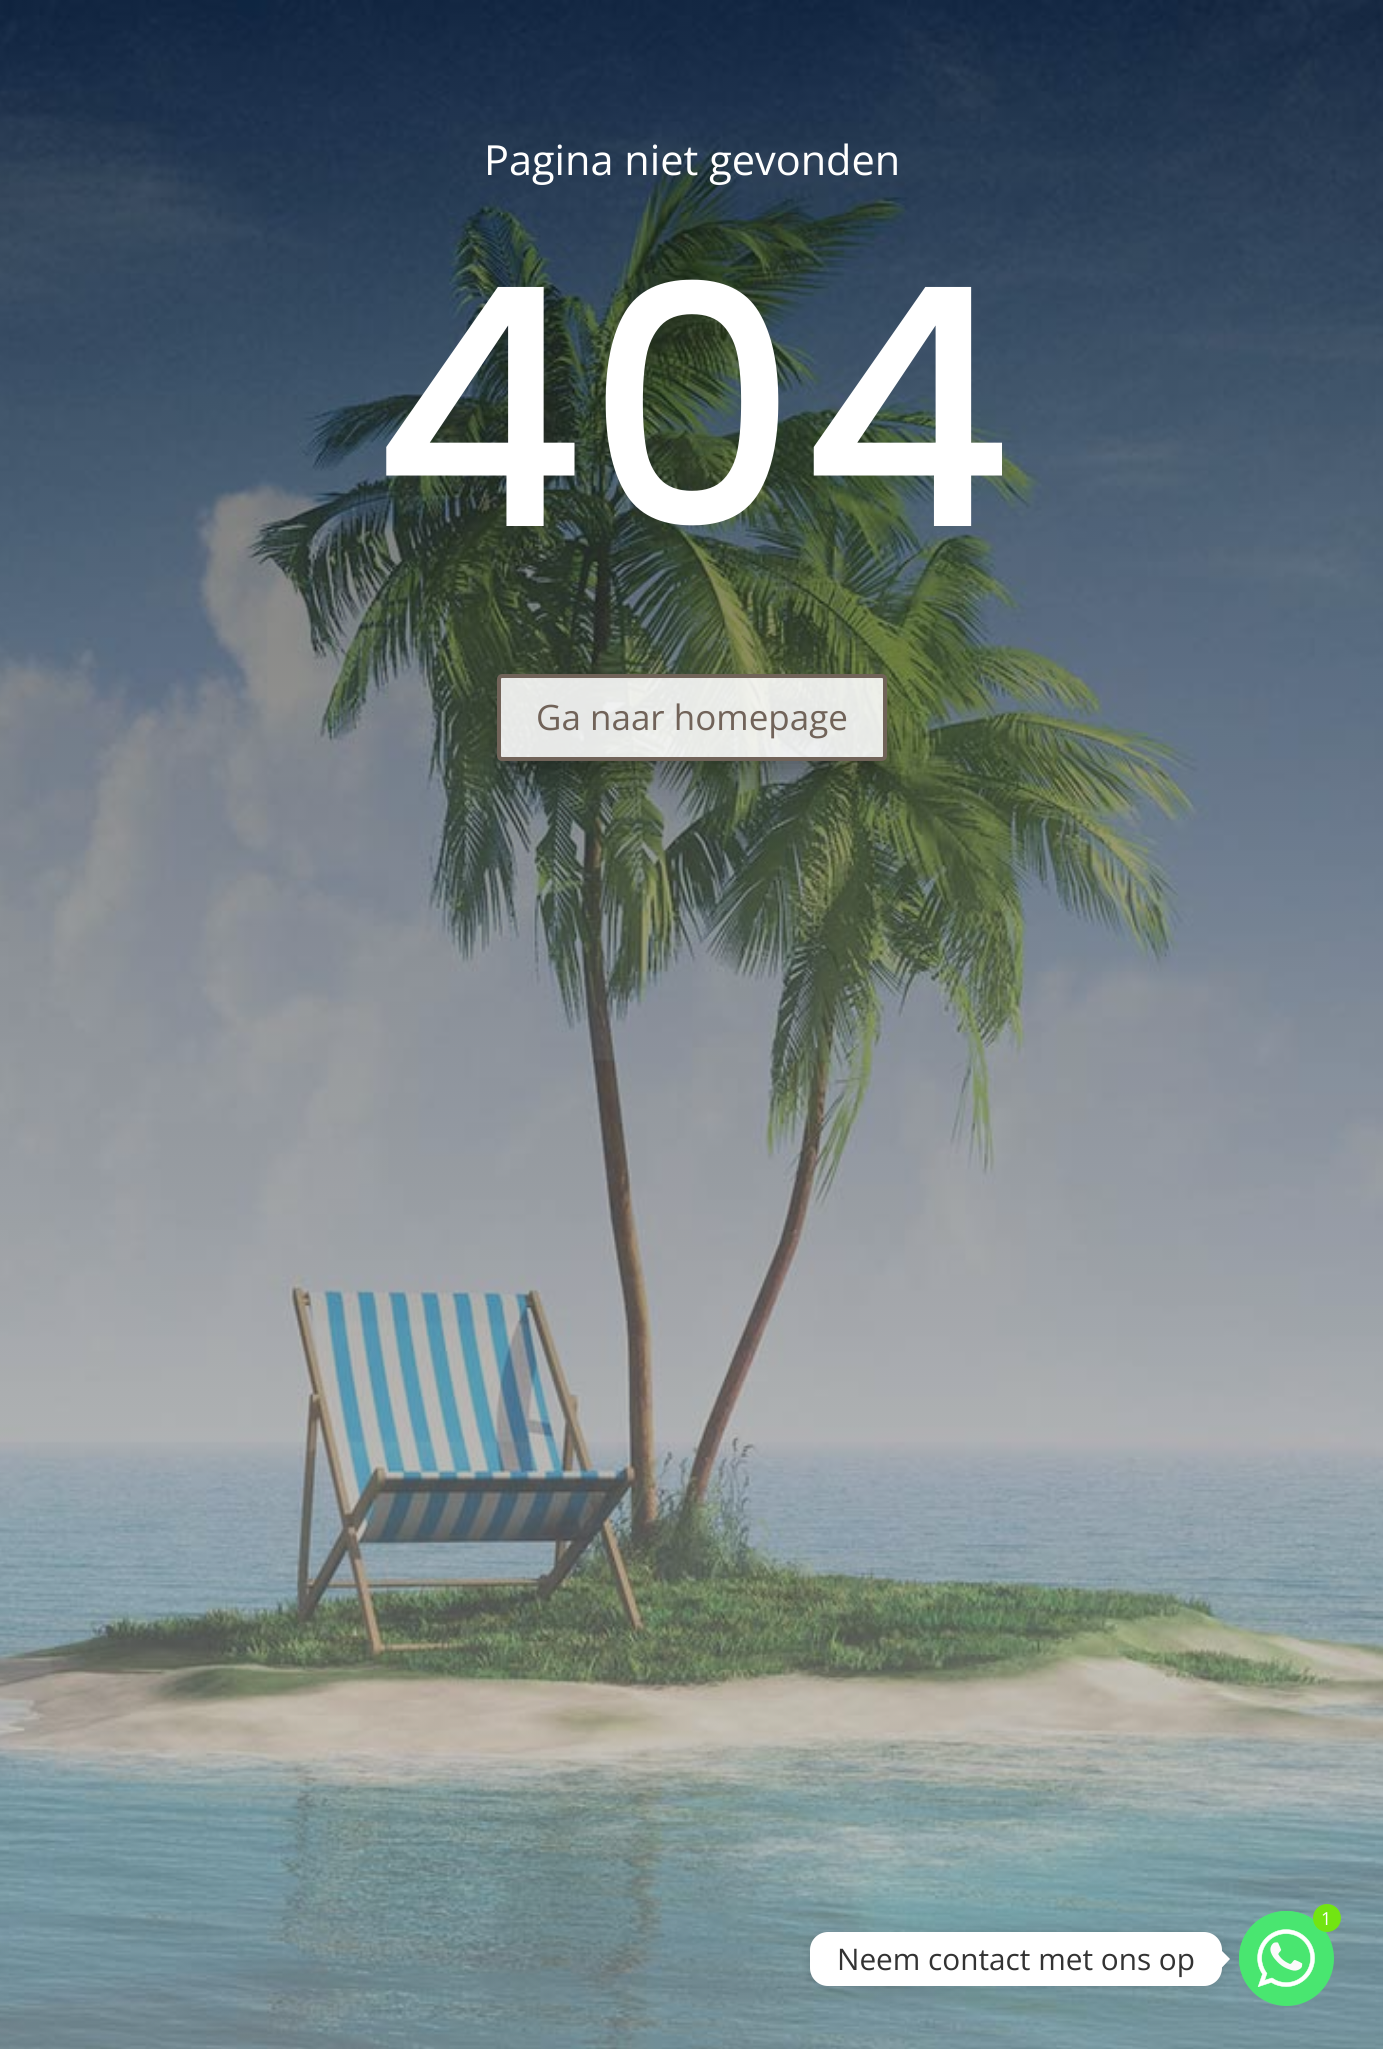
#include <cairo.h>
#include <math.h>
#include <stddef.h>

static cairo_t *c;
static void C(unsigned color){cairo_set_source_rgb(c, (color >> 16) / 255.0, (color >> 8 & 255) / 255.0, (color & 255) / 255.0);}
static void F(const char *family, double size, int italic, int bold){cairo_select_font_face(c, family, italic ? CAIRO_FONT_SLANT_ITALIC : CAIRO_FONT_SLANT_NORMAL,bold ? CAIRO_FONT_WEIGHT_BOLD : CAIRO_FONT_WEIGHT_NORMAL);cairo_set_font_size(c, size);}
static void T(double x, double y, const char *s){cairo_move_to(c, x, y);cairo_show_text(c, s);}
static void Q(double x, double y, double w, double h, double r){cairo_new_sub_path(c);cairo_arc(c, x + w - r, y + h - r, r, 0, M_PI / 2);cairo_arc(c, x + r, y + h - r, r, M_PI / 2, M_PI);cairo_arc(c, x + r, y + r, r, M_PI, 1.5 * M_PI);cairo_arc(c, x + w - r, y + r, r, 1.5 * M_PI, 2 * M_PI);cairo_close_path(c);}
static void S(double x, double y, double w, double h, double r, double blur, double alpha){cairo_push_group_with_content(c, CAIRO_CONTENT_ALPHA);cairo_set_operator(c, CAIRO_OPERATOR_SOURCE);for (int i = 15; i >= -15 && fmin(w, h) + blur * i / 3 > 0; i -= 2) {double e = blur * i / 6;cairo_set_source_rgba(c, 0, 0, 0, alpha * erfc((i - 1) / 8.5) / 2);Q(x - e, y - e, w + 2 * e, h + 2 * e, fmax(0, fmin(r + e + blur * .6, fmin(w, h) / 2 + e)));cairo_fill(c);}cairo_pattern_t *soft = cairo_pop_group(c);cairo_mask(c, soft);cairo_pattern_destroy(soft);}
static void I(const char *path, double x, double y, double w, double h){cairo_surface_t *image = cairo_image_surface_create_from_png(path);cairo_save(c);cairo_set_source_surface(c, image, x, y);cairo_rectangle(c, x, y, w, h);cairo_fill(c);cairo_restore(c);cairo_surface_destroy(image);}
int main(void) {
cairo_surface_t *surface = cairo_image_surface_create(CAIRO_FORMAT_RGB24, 1383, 2049);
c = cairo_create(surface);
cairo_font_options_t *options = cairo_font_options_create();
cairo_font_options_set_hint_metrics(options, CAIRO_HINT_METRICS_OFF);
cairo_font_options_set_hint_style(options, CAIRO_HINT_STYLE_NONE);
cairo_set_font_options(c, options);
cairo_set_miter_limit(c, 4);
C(0xffffff);
cairo_paint(c);
I("1.png",0,0,1383,2049);
F("Open Sans",41.5,0,0);
C(0xffffff);
T(484,175,"Pagina niet gevonden");
F("Poppins Medium",332,0,0);
T(371,526,"404");
cairo_save(c);
cairo_set_fill_rule(c,CAIRO_FILL_RULE_EVEN_ODD);
cairo_new_path(c);
cairo_move_to(c,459,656);
cairo_line_to(c,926,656);
cairo_line_to(c,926,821);
cairo_line_to(c,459,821);
cairo_close_path(c);
cairo_move_to(c,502,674);
cairo_line_to(c,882,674);
cairo_curve_to(c,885,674,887,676,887,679);
cairo_line_to(c,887,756);
cairo_curve_to(c,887,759,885,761,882,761);
cairo_line_to(c,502,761);
cairo_curve_to(c,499,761,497,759,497,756);
cairo_line_to(c,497,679);
cairo_curve_to(c,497,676,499,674,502,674);
cairo_close_path(c);
cairo_clip(c);
C(0x000000);
S(508,705,369,67,0,16,.3);
cairo_restore(c);
cairo_set_source_rgba(c,1,1,1,0.88);
Q(499,676,386,83,3);
cairo_fill_preserve(c);
C(0x716359);
cairo_set_line_width(c,4);
cairo_stroke(c);
F("Open Sans",35,0,0);
T(536,730,"Ga naar homepage");
C(0x49e670);
cairo_new_path(c);
cairo_arc(c,1286.5,1958.5,47.5,0,2 * M_PI);
cairo_fill(c);
I("2.png",1239,1911,76,76);
C(0x72e512);
cairo_arc(c,1327,1918,14,0,2 * M_PI);
cairo_fill(c);
F("Open Sans",18,0,0);
C(0xffffff);
T(1321,1925,"1");
C(0x000000);
S(810,1934,412,54,18,7,.15);
C(0xffffff);
Q(810,1932,412,54,18);
cairo_fill(c);
F("Open Sans",29.75,0,0);
C(0x333333);
T(837,1970,"Neem contact met ons op");
C(0xffffff);
cairo_new_path(c);
cairo_move_to(c,1221.5,1968);
cairo_line_to(c,1221.5,1950.5);
cairo_line_to(c,1230,1959);
cairo_close_path(c);
cairo_fill(c);
cairo_surface_write_to_png(surface, "o.png");
cairo_font_options_destroy(options);
cairo_destroy(c);
cairo_surface_destroy(surface);
return 0;
}
